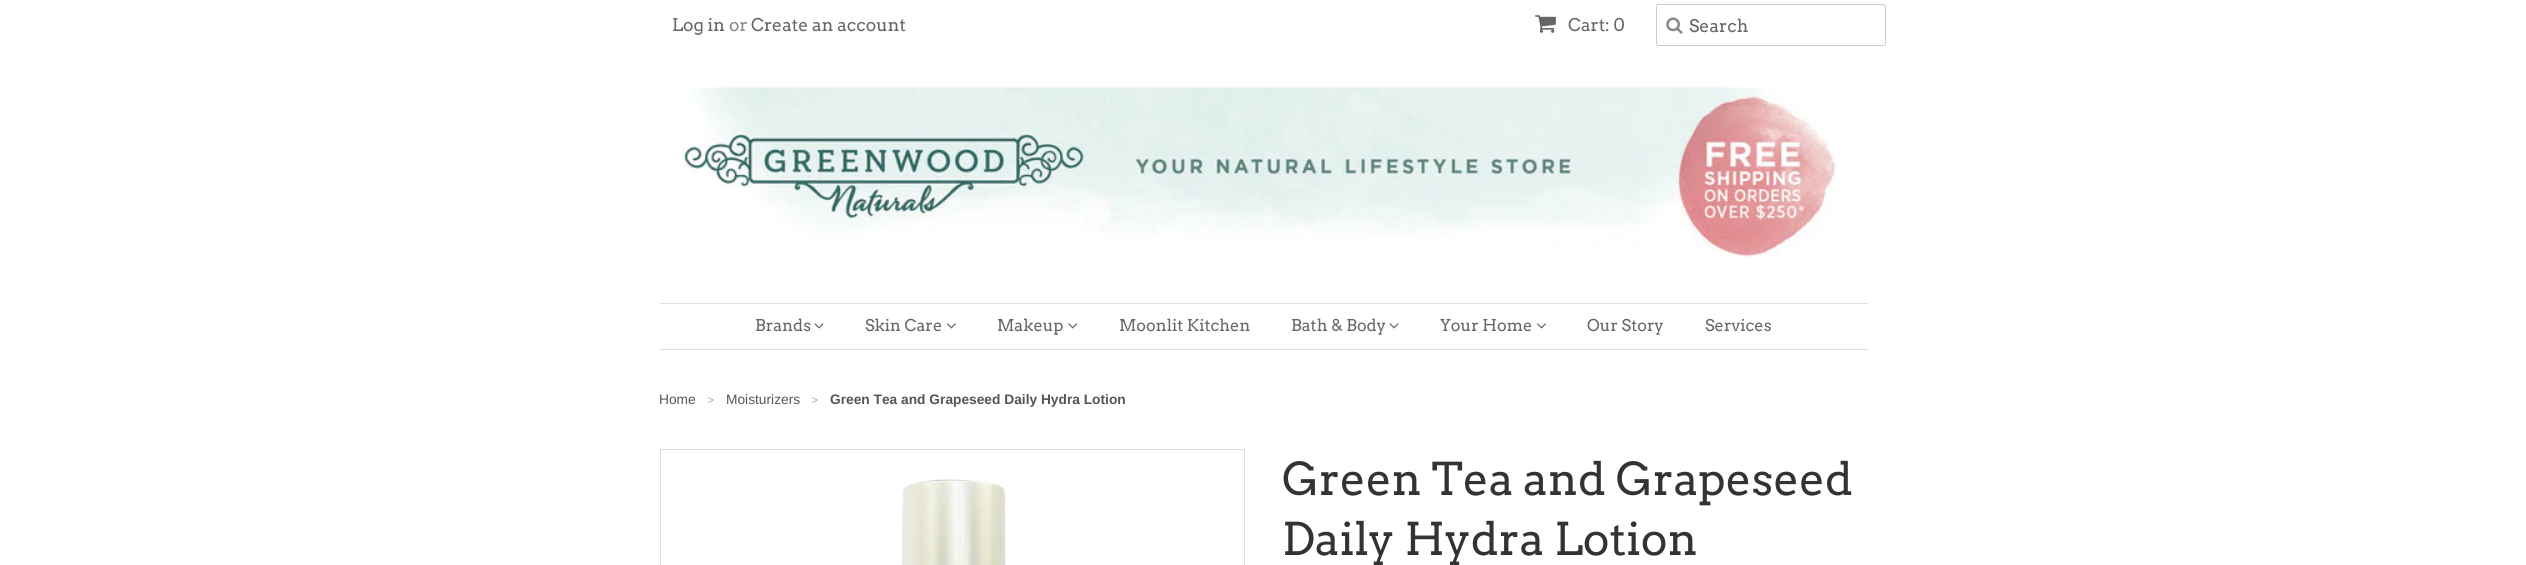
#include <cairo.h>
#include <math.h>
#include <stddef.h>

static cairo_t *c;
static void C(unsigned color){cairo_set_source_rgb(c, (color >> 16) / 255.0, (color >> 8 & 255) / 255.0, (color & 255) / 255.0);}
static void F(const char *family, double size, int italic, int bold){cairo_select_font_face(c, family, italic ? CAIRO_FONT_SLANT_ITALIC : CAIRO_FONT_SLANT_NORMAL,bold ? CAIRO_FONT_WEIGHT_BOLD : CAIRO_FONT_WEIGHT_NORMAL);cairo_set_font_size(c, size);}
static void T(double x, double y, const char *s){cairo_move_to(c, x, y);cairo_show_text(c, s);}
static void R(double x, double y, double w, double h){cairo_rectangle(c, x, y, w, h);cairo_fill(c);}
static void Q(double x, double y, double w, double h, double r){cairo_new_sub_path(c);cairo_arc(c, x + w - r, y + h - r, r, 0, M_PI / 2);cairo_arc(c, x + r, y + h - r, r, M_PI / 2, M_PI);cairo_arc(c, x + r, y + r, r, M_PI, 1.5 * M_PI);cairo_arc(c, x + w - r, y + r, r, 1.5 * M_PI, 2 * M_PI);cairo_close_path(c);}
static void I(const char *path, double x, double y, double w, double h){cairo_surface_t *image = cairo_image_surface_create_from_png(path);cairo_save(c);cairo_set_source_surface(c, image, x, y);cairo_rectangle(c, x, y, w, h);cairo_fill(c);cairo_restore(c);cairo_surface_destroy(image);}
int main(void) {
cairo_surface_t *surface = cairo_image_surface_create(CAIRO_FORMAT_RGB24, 2526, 565);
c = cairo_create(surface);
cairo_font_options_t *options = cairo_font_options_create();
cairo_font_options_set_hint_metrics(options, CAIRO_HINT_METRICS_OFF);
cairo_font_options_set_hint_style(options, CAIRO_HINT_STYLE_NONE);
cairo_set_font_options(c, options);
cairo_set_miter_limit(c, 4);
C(0xffffff);
cairo_paint(c);
F("Arvo",17.5,0,0);
C(0x666666);
T(672,31,"Log in");
C(0x888888);
T(729,31,"or");
C(0x666666);
T(751,31,"Create an account");
I("1.png",1535,15,21,18);
T(1568,31,"Cart: 0");
Q(1656.5,4.5,229,41,2);
C(0xcccccc);
cairo_set_line_width(c,1);
cairo_stroke(c);
I("2.png",1666,17,17,17);
C(0x666666);
T(1689,32,"Search");
I("3.png",680,87,1156,171);
C(0xdddddd);
R(660,303,1208,1);
R(660,349,1208,1);
F("Arvo",16.25,0,0);
C(0x666666);
T(755,331,"Brands");
I("4.png",814,323,10,6);
T(865,331,"Skin Care");
I("5.png",947,323,9,6);
T(997,331,"Makeup");
I("6.png",1068,323,10,6);
T(1119,331,"Moonlit Kitchen");
T(1291,331,"Bath & Body");
I("4.png",1389,323,10,6);
T(1440,331,"Your Home");
I("5.png",1537,323,9,6);
T(1587,331,"Our Story");
T(1705,331,"Services");
F("Liberation Sans",13.75,0,0);
C(0x555555);
T(659,404,"Home");
F("Liberation Sans",12,0,0);
C(0xaaaaaa);
T(707,404,">");
F("Liberation Sans",13.75,0,0);
C(0x555555);
T(726,404,"Moisturizers");
F("Liberation Sans",12,0,0);
C(0xaaaaaa);
T(811,404,">");
F("Liberation Sans",13.75,0,1);
C(0x555555);
T(830,404,"Green Tea and Grapeseed Daily Hydra Lotion");
cairo_rectangle(c,660.5,449.5,584,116);
C(0xdddddd);
cairo_stroke(c);
I("7.png",901,479,105,86);
F("Arvo",45,0,0);
C(0x333333);
T(1282,495,"Green Tea and Grapeseed");
T(1282,555,"Daily Hydra Lotion");
cairo_surface_write_to_png(surface, "o.png");
cairo_font_options_destroy(options);
cairo_destroy(c);
cairo_surface_destroy(surface);
return 0;
}
